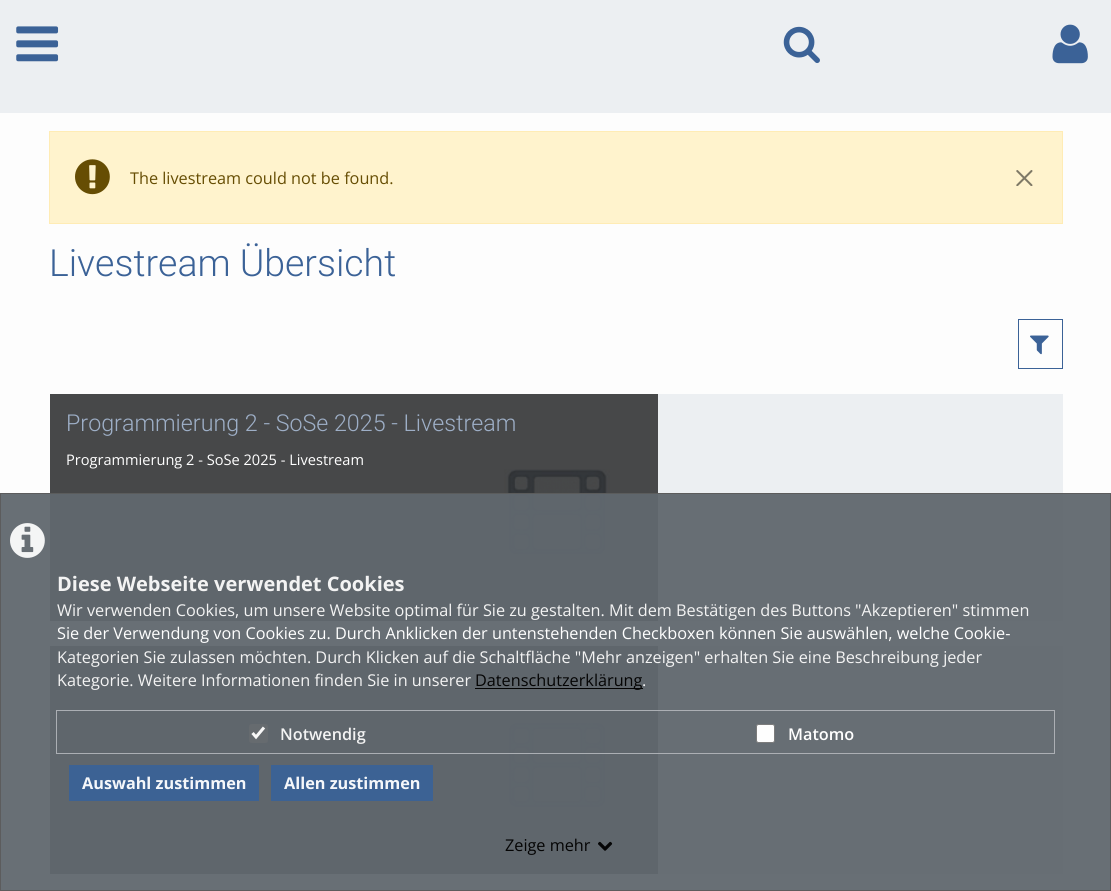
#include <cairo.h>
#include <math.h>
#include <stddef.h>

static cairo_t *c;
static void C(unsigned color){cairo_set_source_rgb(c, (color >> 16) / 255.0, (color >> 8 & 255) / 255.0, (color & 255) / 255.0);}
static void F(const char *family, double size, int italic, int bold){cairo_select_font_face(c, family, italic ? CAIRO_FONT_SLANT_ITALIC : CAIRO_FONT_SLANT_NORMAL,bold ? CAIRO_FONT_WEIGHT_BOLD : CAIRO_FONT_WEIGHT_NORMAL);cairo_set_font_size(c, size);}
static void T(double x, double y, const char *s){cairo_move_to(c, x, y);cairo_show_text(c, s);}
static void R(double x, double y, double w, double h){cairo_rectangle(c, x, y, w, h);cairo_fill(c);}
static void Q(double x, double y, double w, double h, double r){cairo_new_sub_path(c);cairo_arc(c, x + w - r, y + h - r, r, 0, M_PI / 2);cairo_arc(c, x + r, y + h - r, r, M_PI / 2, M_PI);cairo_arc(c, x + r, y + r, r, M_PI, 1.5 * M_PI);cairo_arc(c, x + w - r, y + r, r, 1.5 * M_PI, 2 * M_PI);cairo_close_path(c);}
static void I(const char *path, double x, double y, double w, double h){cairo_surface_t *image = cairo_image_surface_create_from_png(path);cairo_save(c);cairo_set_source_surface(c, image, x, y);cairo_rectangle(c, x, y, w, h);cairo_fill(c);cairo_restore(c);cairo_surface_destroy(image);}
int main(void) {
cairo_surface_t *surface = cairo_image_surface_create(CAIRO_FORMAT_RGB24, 1111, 891);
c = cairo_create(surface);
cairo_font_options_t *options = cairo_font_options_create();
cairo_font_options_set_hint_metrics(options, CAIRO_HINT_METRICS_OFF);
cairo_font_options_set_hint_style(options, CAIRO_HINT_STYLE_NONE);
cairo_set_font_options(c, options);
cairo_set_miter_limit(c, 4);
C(0xfdfdfd);
cairo_paint(c);
C(0xeceff2);
R(0,0,1111,113);
I("1.png",16,26,43,36);
I("2.png",783,26,37,38);
I("3.png",1052,24,36,40);
C(0xfff3cd);
cairo_rectangle(c,49.5,131.5,1013,92);
cairo_fill_preserve(c);
C(0xffecb5);
cairo_set_line_width(c,1);
cairo_stroke(c);
I("4.png",75,159,35,36);
F("Open Sans",16.25,0,0);
C(0x664d03);
T(130,184,"The livestream could not be found.");
I("5.png",1016,170,17,16);
F("Roboto Light",37.4,0,0);
C(0x3b6297);
T(49,276,"Livestream Übersicht");
cairo_rectangle(c,1018.5,319.5,44,49);
cairo_stroke(c);
I("6.png",1030,335,19,20);
C(0xeceff2);
R(658,394,405,227);
C(0x474849);
R(50,394,608,227);
I("7.png",504,469,106,90);
F("Roboto Light",23.25,0,0);
C(0x9eafc7);
T(66,431,"Programmierung 2 - SoSe 2025 - Livestream");
F("Open Sans",14.6,0,0);
C(0xffffff);
T(66,465,"Programmierung 2 - SoSe 2025 - Livestream");
C(0xeceff2);
R(658,646,405,228);
C(0x474849);
R(50,646,608,228);
I("8.png",504,721,106,88);
cairo_set_source_rgba(c,0.38,0.408,0.435,0.95);
R(0,493,1111,398);
cairo_rectangle(c,.5,493.5,1110,397);
cairo_set_source_rgba(c,0.361,0.361,0.361,0.95);
cairo_stroke(c);
I("9.png",10,523,35,35);
F("Open Sans",20,0,1);
C(0xf3f3f3);
T(57,591,"Diese Webseite verwendet Cookies");
F("Open Sans",16.25,0,0);
T(57,616,"Wir verwenden Cookies, um unsere Website optimal für Sie zu gestalten. Mit dem Bestätigen des Buttons \"Akzeptieren\" stimmen");
C(0xffffff);
T(57,639,"Sie der Verwendung von Cookies zu. Durch Anklicken der untenstehenden Checkboxen können Sie auswählen, welche Cookie-");
C(0xf3f3f3);
T(57,663,"Kategorien Sie zulassen möchten. Durch Klicken auf die Schaltfläche \"Mehr anzeigen\" erhalten Sie eine Beschreibung jeder");
T(57,686,"Kategorie. Weitere Informationen finden Sie in unserer");
C(0x040404);
R(475,688,168,1);
T(475,686,"Datenschutzerklärung");
C(0xf3f3f3);
T(642,686,".");
cairo_rectangle(c,56.5,710.5,998,43);
cairo_set_source_rgba(c,0.69,0.702,0.722,0.95);
cairo_stroke(c);
cairo_set_source_rgba(c,0.463,0.463,0.463,0.28);
Q(249,724,19,19,2.5);
cairo_fill(c);
cairo_new_path(c);
cairo_move_to(c,252.5,733);
cairo_line_to(c,256,737);
cairo_line_to(c,264,727.5);
cairo_set_source_rgba(c,1,1,1,0.95);
cairo_set_line_width(c,3);
cairo_stroke(c);
F("Open Sans SemiBold",16.25,0,0);
C(0xf3f3f3);
T(280,740,"Notwendig");
C(0xfefefe);
Q(756.5,724.5,18,18,2);
cairo_fill_preserve(c);
C(0x7c7c7c);
cairo_set_line_width(c,1);
cairo_stroke(c);
C(0xffffff);
T(788,740,"Matomo");
cairo_set_source_rgba(c,0.231,0.384,0.592,0.95);
R(69,765,190,36);
F("Open Sans",16.25,0,1);
C(0xf5f7fa);
T(82,789,"Auswahl zustimmen");
cairo_set_source_rgba(c,0.231,0.384,0.592,0.95);
R(271,765,162,36);
C(0xf5f7fa);
T(284,789,"Allen zustimmen");
F("Open Sans",16.25,0,0);
C(0x040404);
T(505,851,"Zeige mehr");
I("10.png",598,841,15,10);
cairo_surface_write_to_png(surface, "o.png");
cairo_font_options_destroy(options);
cairo_destroy(c);
cairo_surface_destroy(surface);
return 0;
}
